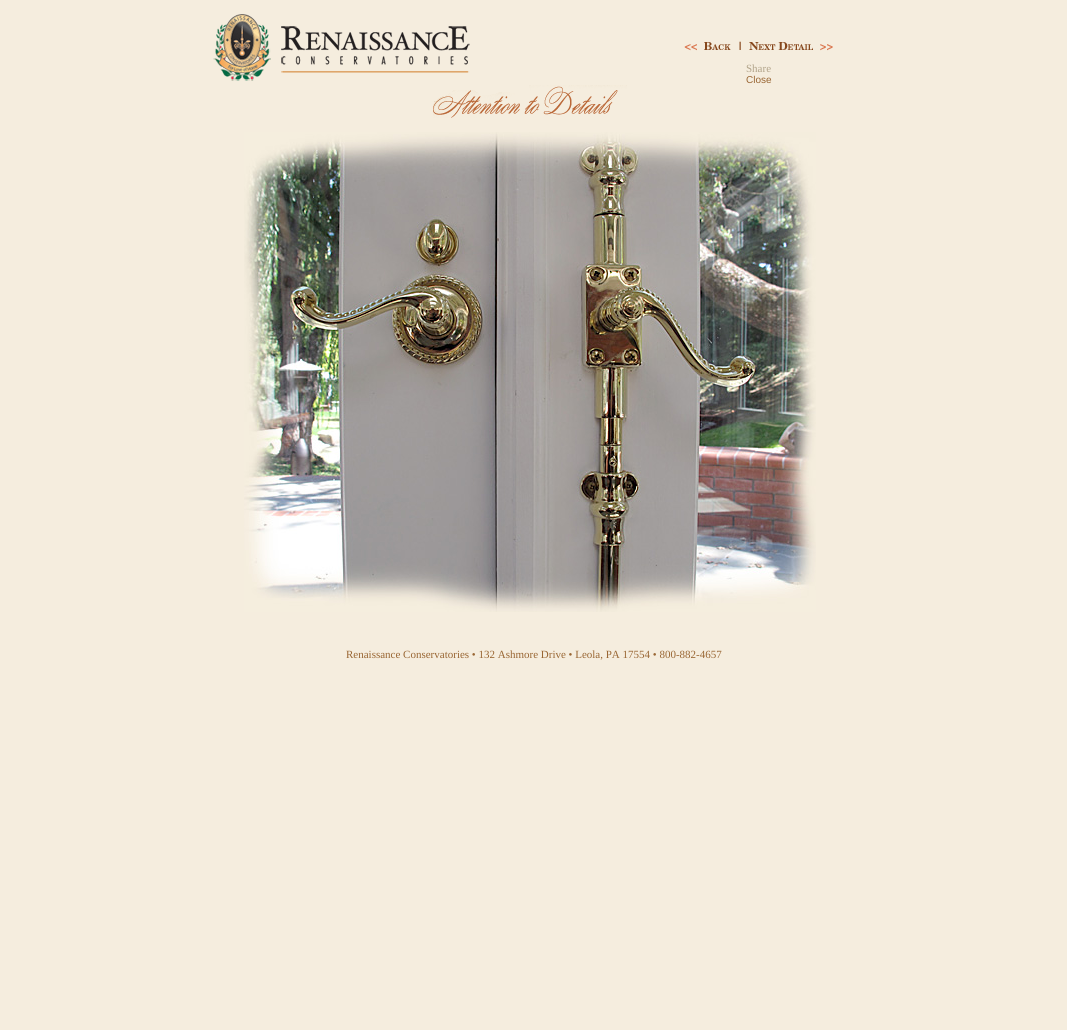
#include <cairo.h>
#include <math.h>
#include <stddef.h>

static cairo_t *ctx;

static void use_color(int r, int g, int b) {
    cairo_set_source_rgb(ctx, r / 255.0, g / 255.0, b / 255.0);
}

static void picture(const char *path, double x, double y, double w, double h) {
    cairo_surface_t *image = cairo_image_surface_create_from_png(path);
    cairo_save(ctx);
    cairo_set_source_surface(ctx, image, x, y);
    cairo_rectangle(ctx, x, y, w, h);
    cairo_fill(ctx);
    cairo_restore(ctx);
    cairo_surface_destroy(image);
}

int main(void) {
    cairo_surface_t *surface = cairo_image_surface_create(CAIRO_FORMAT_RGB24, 1067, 1030);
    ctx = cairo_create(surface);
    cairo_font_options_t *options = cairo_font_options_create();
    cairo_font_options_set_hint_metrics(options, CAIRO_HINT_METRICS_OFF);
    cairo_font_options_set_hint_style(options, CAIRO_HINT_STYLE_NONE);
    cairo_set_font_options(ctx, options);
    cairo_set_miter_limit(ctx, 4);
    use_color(245, 237, 222);
    cairo_paint(ctx);
    picture("img1.png", 213, 14, 257, 67);
    picture("img2.png", 684, 42, 47, 9);
    picture("img3.png", 739, 41, 2, 9);
    picture("img4.png", 749, 42, 84, 9);
    cairo_select_font_face(ctx, "Liberation Serif", CAIRO_FONT_SLANT_NORMAL, CAIRO_FONT_WEIGHT_NORMAL);
    cairo_set_font_size(ctx, 11);
    use_color(178, 164, 138);
    cairo_move_to(ctx, 746, 72);
    cairo_show_text(ctx, "Share");
    cairo_select_font_face(ctx, "Liberation Sans", CAIRO_FONT_SLANT_NORMAL, CAIRO_FONT_WEIGHT_NORMAL);
    cairo_set_font_size(ctx, 10);
    use_color(153, 102, 51);
    cairo_move_to(ctx, 746, 83);
    cairo_show_text(ctx, "Close");
    picture("img5.png", 433, 85, 194, 33);
    picture("img6.png", 244, 132, 572, 480);
    cairo_select_font_face(ctx, "Liberation Serif", CAIRO_FONT_SLANT_NORMAL, CAIRO_FONT_WEIGHT_NORMAL);
    cairo_set_font_size(ctx, 11);
    cairo_move_to(ctx, 346, 658);
    cairo_show_text(ctx, "Renaissance Conservatories • 132 Ashmore Drive • Leola, PA 17554 • 800-882-4657");
    cairo_surface_write_to_png(surface, "result.png");
    cairo_font_options_destroy(options);
    cairo_destroy(ctx);
    cairo_surface_destroy(surface);
    return 0;
}
